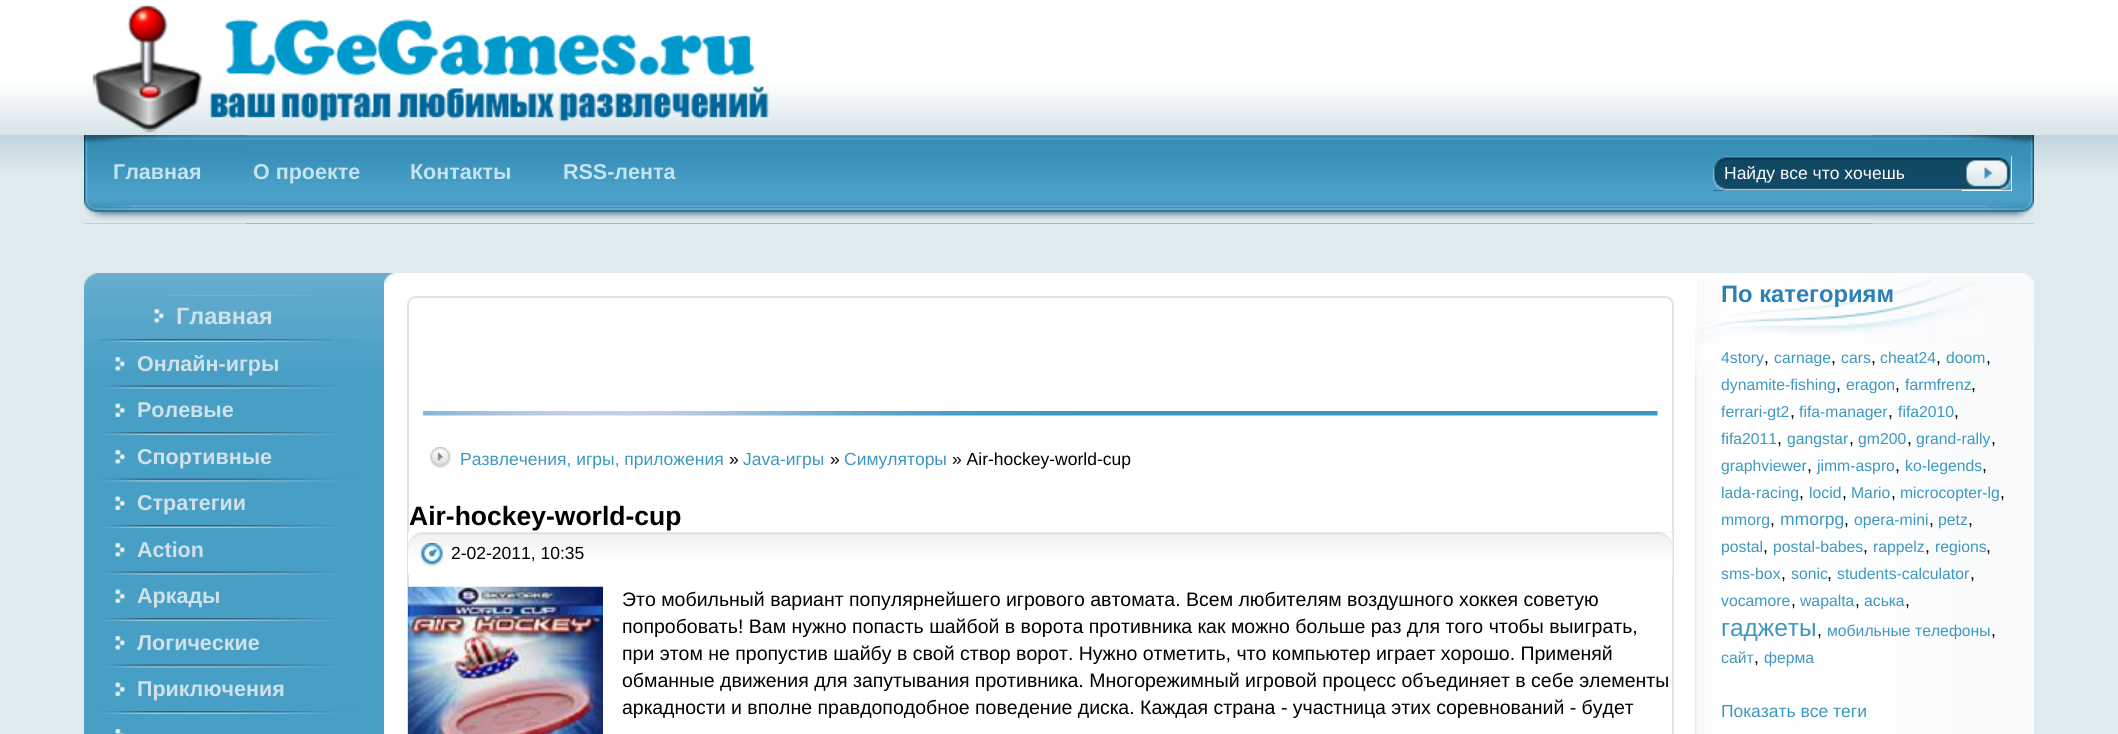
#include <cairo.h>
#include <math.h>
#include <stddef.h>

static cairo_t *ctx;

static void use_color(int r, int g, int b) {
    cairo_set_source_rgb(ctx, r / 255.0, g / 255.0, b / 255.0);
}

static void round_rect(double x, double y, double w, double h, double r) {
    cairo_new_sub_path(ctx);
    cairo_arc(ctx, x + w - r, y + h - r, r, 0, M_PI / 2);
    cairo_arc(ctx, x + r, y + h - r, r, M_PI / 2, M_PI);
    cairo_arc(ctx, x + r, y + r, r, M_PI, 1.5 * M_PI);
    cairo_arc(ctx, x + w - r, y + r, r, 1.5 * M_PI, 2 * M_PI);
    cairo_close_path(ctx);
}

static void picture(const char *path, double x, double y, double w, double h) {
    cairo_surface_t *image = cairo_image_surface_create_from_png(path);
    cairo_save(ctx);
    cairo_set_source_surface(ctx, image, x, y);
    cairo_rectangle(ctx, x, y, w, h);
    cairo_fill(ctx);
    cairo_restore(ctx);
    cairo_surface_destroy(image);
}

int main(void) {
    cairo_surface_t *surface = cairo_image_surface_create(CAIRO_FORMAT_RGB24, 2118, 734);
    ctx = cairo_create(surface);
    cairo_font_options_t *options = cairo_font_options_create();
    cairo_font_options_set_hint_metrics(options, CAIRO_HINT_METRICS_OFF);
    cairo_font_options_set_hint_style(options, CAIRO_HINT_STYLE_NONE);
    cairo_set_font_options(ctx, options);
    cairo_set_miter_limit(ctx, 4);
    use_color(223, 234, 239);
    cairo_paint(ctx);
    picture("img1.png", 0, 0, 2118, 171);
    picture("img2.png", 92, 5, 677, 128);
    use_color(56, 144, 185);
    cairo_rectangle(ctx, 84, 223, 1950, 1);
    cairo_fill(ctx);
    picture("img3.png", 84, 135, 1950, 89);
    picture("img4.png", 84, 135, 162, 89);
    picture("img5.png", 1872, 135, 162, 89);
    cairo_select_font_face(ctx, "Liberation Sans", CAIRO_FONT_SLANT_NORMAL, CAIRO_FONT_WEIGHT_BOLD);
    cairo_set_font_size(ctx, 21.5);
    use_color(197, 227, 240);
    cairo_move_to(ctx, 113, 179);
    cairo_show_text(ctx, "Главная");
    cairo_move_to(ctx, 253, 179);
    cairo_show_text(ctx, "О проекте");
    cairo_move_to(ctx, 410, 179);
    cairo_show_text(ctx, "Контакты");
    cairo_move_to(ctx, 563, 179);
    cairo_show_text(ctx, "RSS-лента");
    use_color(17, 73, 101);
    cairo_rectangle(ctx, 1713, 190, 249, 1);
    cairo_fill(ctx);
    picture("img6.png", 1713, 156, 249, 35);
    cairo_select_font_face(ctx, "Liberation Sans", CAIRO_FONT_SLANT_NORMAL, CAIRO_FONT_WEIGHT_NORMAL);
    cairo_set_font_size(ctx, 17.5);
    use_color(255, 255, 255);
    cairo_move_to(ctx, 1724, 179);
    cairo_show_text(ctx, "Найду все что хочешь");
    cairo_rectangle(ctx, 1962, 156, 50, 35);
    cairo_fill(ctx);
    picture("img7.png", 1962, 156, 50, 35);
    cairo_rectangle(ctx, 384, 273, 1311, 461);
    cairo_fill(ctx);
    picture("img8.png", 1695, 378, 339, 356);
    picture("img9.png", 1695, 273, 339, 105);
    use_color(72, 159, 198);
    cairo_rectangle(ctx, 84, 368, 300, 366);
    cairo_fill(ctx);
    picture("img10.png", 84, 273, 300, 95);
    picture("img11.png", 138, 295, 189, 1);
    picture("img12.png", 154, 309, 10, 14);
    cairo_select_font_face(ctx, "Liberation Sans", CAIRO_FONT_SLANT_NORMAL, CAIRO_FONT_WEIGHT_BOLD);
    cairo_set_font_size(ctx, 23.5);
    use_color(208, 225, 232);
    cairo_move_to(ctx, 176, 324);
    cairo_show_text(ctx, "Главная");
    picture("img13.png", 99, 339, 258, 3);
    picture("img14.png", 115, 357, 10, 14);
    cairo_set_font_size(ctx, 21.5);
    cairo_move_to(ctx, 137, 371);
    cairo_show_text(ctx, "Онлайн-игры");
    picture("img15.png", 99, 385, 258, 4);
    picture("img16.png", 115, 403, 10, 14);
    cairo_move_to(ctx, 137, 417);
    cairo_show_text(ctx, "Ролевые");
    picture("img17.png", 99, 432, 258, 3);
    picture("img18.png", 115, 450, 10, 14);
    cairo_move_to(ctx, 137, 464);
    cairo_show_text(ctx, "Спортивные");
    picture("img15.png", 99, 478, 258, 4);
    picture("img16.png", 115, 496, 10, 14);
    cairo_move_to(ctx, 137, 510);
    cairo_show_text(ctx, "Стратегии");
    picture("img17.png", 99, 525, 258, 3);
    picture("img18.png", 115, 543, 10, 14);
    cairo_move_to(ctx, 137, 557);
    cairo_show_text(ctx, "Action");
    picture("img15.png", 99, 571, 258, 4);
    picture("img16.png", 115, 589, 10, 14);
    cairo_move_to(ctx, 137, 603);
    cairo_show_text(ctx, "Аркады");
    picture("img17.png", 99, 618, 258, 3);
    picture("img18.png", 115, 636, 10, 14);
    cairo_move_to(ctx, 137, 650);
    cairo_show_text(ctx, "Логические");
    picture("img15.png", 99, 664, 258, 4);
    picture("img16.png", 115, 682, 10, 14);
    cairo_move_to(ctx, 137, 696);
    cairo_show_text(ctx, "Приключения");
    picture("img17.png", 99, 711, 258, 3);
    picture("img19.png", 115, 729, 10, 5);
    picture("img20.png", 384, 273, 11, 11);
    round_rect(408, 297, 1265, 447, 8);
    use_color(222, 228, 232);
    cairo_stroke(ctx);
    picture("img21.png", 423, 411, 1235, 5);
    picture("img22.png", 429, 447, 22, 22);
    cairo_select_font_face(ctx, "Liberation Sans", CAIRO_FONT_SLANT_NORMAL, CAIRO_FONT_WEIGHT_NORMAL);
    cairo_set_font_size(ctx, 17.5);
    use_color(61, 151, 192);
    cairo_move_to(ctx, 460, 465);
    cairo_show_text(ctx, "Развлечения, игры, приложения");
    use_color(0, 0, 0);
    cairo_move_to(ctx, 729, 465);
    cairo_show_text(ctx, "»");
    use_color(61, 151, 192);
    cairo_move_to(ctx, 743, 465);
    cairo_show_text(ctx, "Java-игры");
    use_color(0, 0, 0);
    cairo_move_to(ctx, 830, 465);
    cairo_show_text(ctx, "»");
    use_color(61, 151, 192);
    cairo_move_to(ctx, 844, 465);
    cairo_show_text(ctx, "Симуляторы");
    use_color(0, 0, 0);
    cairo_move_to(ctx, 952, 465);
    cairo_show_text(ctx, "» Air-hockey-world-cup");
    cairo_select_font_face(ctx, "Liberation Sans", CAIRO_FONT_SLANT_NORMAL, CAIRO_FONT_WEIGHT_BOLD);
    cairo_set_font_size(ctx, 26.5);
    cairo_move_to(ctx, 409, 525);
    cairo_show_text(ctx, "Air-hockey-world-cup");
    picture("img23.png", 408, 532, 1265, 43);
    picture("img24.png", 1401, 532, 272, 42);
    picture("img25.png", 420, 543, 24, 24);
    cairo_select_font_face(ctx, "Liberation Sans", CAIRO_FONT_SLANT_NORMAL, CAIRO_FONT_WEIGHT_NORMAL);
    cairo_set_font_size(ctx, 17.5);
    cairo_move_to(ctx, 451, 559);
    cairo_show_text(ctx, "2-02-2011, 10:35");
    picture("img26.png", 408, 586, 195, 148);
    cairo_set_font_size(ctx, 19.5);
    cairo_move_to(ctx, 622, 606);
    cairo_show_text(ctx, "Это мобильный вариант популярнейшего игрового автомата. Всем любителям воздушного хоккея советую");
    cairo_move_to(ctx, 622, 633);
    cairo_show_text(ctx, "попробовать! Вам нужно попасть шайбой в ворота противника как можно больше раз для того чтобы выиграть,");
    cairo_move_to(ctx, 622, 660);
    cairo_show_text(ctx, "при этом не пропустив шайбу в свой створ ворот. Нужно отметить, что компьютер играет хорошо. Применяй");
    cairo_move_to(ctx, 622, 687);
    cairo_show_text(ctx, "обманные движения для запутывания противника. Многорежимный игровой процесс объединяет в себе элементы");
    cairo_move_to(ctx, 622, 714);
    cairo_show_text(ctx, "аркадности и вполне правдоподобное поведение диска. Каждая страна - участница этих соревнований - будет");
    picture("img27.png", 1697, 280, 337, 64);
    cairo_select_font_face(ctx, "Liberation Sans", CAIRO_FONT_SLANT_NORMAL, CAIRO_FONT_WEIGHT_BOLD);
    cairo_set_font_size(ctx, 23.75);
    use_color(45, 127, 181);
    cairo_move_to(ctx, 1721, 302);
    cairo_show_text(ctx, "По категориям");
    cairo_select_font_face(ctx, "Liberation Sans", CAIRO_FONT_SLANT_NORMAL, CAIRO_FONT_WEIGHT_NORMAL);
    cairo_set_font_size(ctx, 15.75);
    use_color(61, 151, 192);
    cairo_move_to(ctx, 1721, 363);
    cairo_show_text(ctx, "4story");
    cairo_set_font_size(ctx, 17.5);
    use_color(0, 0, 0);
    cairo_move_to(ctx, 1764, 363);
    cairo_show_text(ctx, ",");
    cairo_set_font_size(ctx, 15.75);
    use_color(61, 151, 192);
    cairo_move_to(ctx, 1774, 363);
    cairo_show_text(ctx, "carnage");
    cairo_set_font_size(ctx, 17.5);
    use_color(0, 0, 0);
    cairo_move_to(ctx, 1831, 363);
    cairo_show_text(ctx, ",");
    cairo_set_font_size(ctx, 15.75);
    use_color(61, 151, 192);
    cairo_move_to(ctx, 1841, 363);
    cairo_show_text(ctx, "cars");
    cairo_set_font_size(ctx, 17.5);
    use_color(0, 0, 0);
    cairo_move_to(ctx, 1871, 363);
    cairo_show_text(ctx, ",");
    cairo_set_font_size(ctx, 15.75);
    use_color(61, 151, 192);
    cairo_move_to(ctx, 1880, 363);
    cairo_show_text(ctx, "cheat24");
    cairo_set_font_size(ctx, 17.5);
    use_color(0, 0, 0);
    cairo_move_to(ctx, 1936, 363);
    cairo_show_text(ctx, ",");
    cairo_set_font_size(ctx, 15.75);
    use_color(61, 151, 192);
    cairo_move_to(ctx, 1946, 363);
    cairo_show_text(ctx, "doom");
    cairo_set_font_size(ctx, 17.5);
    use_color(0, 0, 0);
    cairo_move_to(ctx, 1986, 363);
    cairo_show_text(ctx, ",");
    cairo_set_font_size(ctx, 15.75);
    use_color(61, 151, 192);
    cairo_move_to(ctx, 1721, 390);
    cairo_show_text(ctx, "dynamite-fishing");
    cairo_set_font_size(ctx, 17.5);
    use_color(0, 0, 0);
    cairo_move_to(ctx, 1836, 390);
    cairo_show_text(ctx, ",");
    cairo_set_font_size(ctx, 15.75);
    use_color(61, 151, 192);
    cairo_move_to(ctx, 1846, 390);
    cairo_show_text(ctx, "eragon");
    cairo_set_font_size(ctx, 17.5);
    use_color(0, 0, 0);
    cairo_move_to(ctx, 1895, 390);
    cairo_show_text(ctx, ",");
    cairo_set_font_size(ctx, 15.75);
    use_color(61, 151, 192);
    cairo_move_to(ctx, 1905, 390);
    cairo_show_text(ctx, "farmfrenz");
    cairo_set_font_size(ctx, 17.5);
    use_color(0, 0, 0);
    cairo_move_to(ctx, 1971, 390);
    cairo_show_text(ctx, ",");
    cairo_set_font_size(ctx, 15.75);
    use_color(61, 151, 192);
    cairo_move_to(ctx, 1721, 417);
    cairo_show_text(ctx, "ferrari-gt2");
    cairo_set_font_size(ctx, 17.5);
    use_color(0, 0, 0);
    cairo_move_to(ctx, 1790, 417);
    cairo_show_text(ctx, ",");
    cairo_set_font_size(ctx, 15.75);
    use_color(61, 151, 192);
    cairo_move_to(ctx, 1799, 417);
    cairo_show_text(ctx, "fifa-manager");
    cairo_set_font_size(ctx, 17.5);
    use_color(0, 0, 0);
    cairo_move_to(ctx, 1888, 417);
    cairo_show_text(ctx, ",");
    cairo_set_font_size(ctx, 15.75);
    use_color(61, 151, 192);
    cairo_move_to(ctx, 1898, 417);
    cairo_show_text(ctx, "fifa2010");
    cairo_set_font_size(ctx, 17.5);
    use_color(0, 0, 0);
    cairo_move_to(ctx, 1954, 417);
    cairo_show_text(ctx, ",");
    cairo_set_font_size(ctx, 15.75);
    use_color(61, 151, 192);
    cairo_move_to(ctx, 1721, 444);
    cairo_show_text(ctx, "fifa2011");
    cairo_set_font_size(ctx, 17.5);
    use_color(0, 0, 0);
    cairo_move_to(ctx, 1777, 444);
    cairo_show_text(ctx, ",");
    cairo_set_font_size(ctx, 15.75);
    use_color(61, 151, 192);
    cairo_move_to(ctx, 1787, 444);
    cairo_show_text(ctx, "gangstar");
    cairo_set_font_size(ctx, 17.5);
    use_color(0, 0, 0);
    cairo_move_to(ctx, 1849, 444);
    cairo_show_text(ctx, ",");
    cairo_set_font_size(ctx, 15.75);
    use_color(61, 151, 192);
    cairo_move_to(ctx, 1858, 444);
    cairo_show_text(ctx, "gm200");
    cairo_set_font_size(ctx, 17.5);
    use_color(0, 0, 0);
    cairo_move_to(ctx, 1907, 444);
    cairo_show_text(ctx, ",");
    cairo_set_font_size(ctx, 15.75);
    use_color(61, 151, 192);
    cairo_move_to(ctx, 1916, 444);
    cairo_show_text(ctx, "grand-rally");
    cairo_set_font_size(ctx, 17.5);
    use_color(0, 0, 0);
    cairo_move_to(ctx, 1991, 444);
    cairo_show_text(ctx, ",");
    cairo_set_font_size(ctx, 15.75);
    use_color(61, 151, 192);
    cairo_move_to(ctx, 1721, 471);
    cairo_show_text(ctx, "graphviewer");
    cairo_set_font_size(ctx, 17.5);
    use_color(0, 0, 0);
    cairo_move_to(ctx, 1807, 471);
    cairo_show_text(ctx, ",");
    cairo_set_font_size(ctx, 15.75);
    use_color(61, 151, 192);
    cairo_move_to(ctx, 1817, 471);
    cairo_show_text(ctx, "jimm-aspro");
    cairo_set_font_size(ctx, 17.5);
    use_color(0, 0, 0);
    cairo_move_to(ctx, 1895, 471);
    cairo_show_text(ctx, ",");
    cairo_set_font_size(ctx, 15.75);
    use_color(61, 151, 192);
    cairo_move_to(ctx, 1905, 471);
    cairo_show_text(ctx, "ko-legends");
    cairo_set_font_size(ctx, 17.5);
    use_color(0, 0, 0);
    cairo_move_to(ctx, 1982, 471);
    cairo_show_text(ctx, ",");
    cairo_set_font_size(ctx, 15.75);
    use_color(61, 151, 192);
    cairo_move_to(ctx, 1721, 498);
    cairo_show_text(ctx, "lada-racing");
    cairo_set_font_size(ctx, 17.5);
    use_color(0, 0, 0);
    cairo_move_to(ctx, 1799, 498);
    cairo_show_text(ctx, ",");
    cairo_set_font_size(ctx, 15.75);
    use_color(61, 151, 192);
    cairo_move_to(ctx, 1809, 498);
    cairo_show_text(ctx, "locid");
    cairo_set_font_size(ctx, 17.5);
    use_color(0, 0, 0);
    cairo_move_to(ctx, 1842, 498);
    cairo_show_text(ctx, ",");
    cairo_set_font_size(ctx, 15.75);
    use_color(61, 151, 192);
    cairo_move_to(ctx, 1851, 498);
    cairo_show_text(ctx, "Mario");
    cairo_set_font_size(ctx, 17.5);
    use_color(0, 0, 0);
    cairo_move_to(ctx, 1891, 498);
    cairo_show_text(ctx, ",");
    cairo_set_font_size(ctx, 15.75);
    use_color(61, 151, 192);
    cairo_move_to(ctx, 1900, 498);
    cairo_show_text(ctx, "microcopter-lg");
    cairo_set_font_size(ctx, 17.5);
    use_color(0, 0, 0);
    cairo_move_to(ctx, 2000, 498);
    cairo_show_text(ctx, ",");
    cairo_set_font_size(ctx, 15.75);
    use_color(61, 151, 192);
    cairo_move_to(ctx, 1721, 525);
    cairo_show_text(ctx, "mmorg");
    cairo_set_font_size(ctx, 17.5);
    use_color(0, 0, 0);
    cairo_move_to(ctx, 1770, 525);
    cairo_show_text(ctx, ",");
    use_color(61, 151, 192);
    cairo_move_to(ctx, 1780, 525);
    cairo_show_text(ctx, "mmorpg");
    use_color(0, 0, 0);
    cairo_move_to(ctx, 1844, 525);
    cairo_show_text(ctx, ",");
    cairo_set_font_size(ctx, 15.75);
    use_color(61, 151, 192);
    cairo_move_to(ctx, 1854, 525);
    cairo_show_text(ctx, "opera-mini");
    cairo_set_font_size(ctx, 17.5);
    use_color(0, 0, 0);
    cairo_move_to(ctx, 1929, 525);
    cairo_show_text(ctx, ",");
    cairo_set_font_size(ctx, 15.75);
    use_color(61, 151, 192);
    cairo_move_to(ctx, 1938, 525);
    cairo_show_text(ctx, "petz");
    cairo_set_font_size(ctx, 17.5);
    use_color(0, 0, 0);
    cairo_move_to(ctx, 1968, 525);
    cairo_show_text(ctx, ",");
    cairo_set_font_size(ctx, 15.75);
    use_color(61, 151, 192);
    cairo_move_to(ctx, 1721, 552);
    cairo_show_text(ctx, "postal");
    cairo_set_font_size(ctx, 17.5);
    use_color(0, 0, 0);
    cairo_move_to(ctx, 1763, 552);
    cairo_show_text(ctx, ",");
    cairo_set_font_size(ctx, 15.75);
    use_color(61, 151, 192);
    cairo_move_to(ctx, 1773, 552);
    cairo_show_text(ctx, "postal-babes");
    cairo_set_font_size(ctx, 17.5);
    use_color(0, 0, 0);
    cairo_move_to(ctx, 1863, 552);
    cairo_show_text(ctx, ",");
    cairo_set_font_size(ctx, 15.75);
    use_color(61, 151, 192);
    cairo_move_to(ctx, 1873, 552);
    cairo_show_text(ctx, "rappelz");
    cairo_set_font_size(ctx, 17.5);
    use_color(0, 0, 0);
    cairo_move_to(ctx, 1925, 552);
    cairo_show_text(ctx, ",");
    cairo_set_font_size(ctx, 15.75);
    use_color(61, 151, 192);
    cairo_move_to(ctx, 1935, 552);
    cairo_show_text(ctx, "regions");
    cairo_set_font_size(ctx, 17.5);
    use_color(0, 0, 0);
    cairo_move_to(ctx, 1986, 552);
    cairo_show_text(ctx, ",");
    cairo_set_font_size(ctx, 15.75);
    use_color(61, 151, 192);
    cairo_move_to(ctx, 1721, 579);
    cairo_show_text(ctx, "sms-box");
    cairo_set_font_size(ctx, 17.5);
    use_color(0, 0, 0);
    cairo_move_to(ctx, 1781, 579);
    cairo_show_text(ctx, ",");
    cairo_set_font_size(ctx, 15.75);
    use_color(61, 151, 192);
    cairo_move_to(ctx, 1791, 579);
    cairo_show_text(ctx, "sonic");
    cairo_set_font_size(ctx, 17.5);
    use_color(0, 0, 0);
    cairo_move_to(ctx, 1827, 579);
    cairo_show_text(ctx, ",");
    cairo_set_font_size(ctx, 15.75);
    use_color(61, 151, 192);
    cairo_move_to(ctx, 1837, 579);
    cairo_show_text(ctx, "students-calculator");
    cairo_set_font_size(ctx, 17.5);
    use_color(0, 0, 0);
    cairo_move_to(ctx, 1970, 579);
    cairo_show_text(ctx, ",");
    cairo_set_font_size(ctx, 15.75);
    use_color(61, 151, 192);
    cairo_move_to(ctx, 1721, 606);
    cairo_show_text(ctx, "vocamore");
    cairo_set_font_size(ctx, 17.5);
    use_color(0, 0, 0);
    cairo_move_to(ctx, 1791, 606);
    cairo_show_text(ctx, ",");
    cairo_set_font_size(ctx, 15.75);
    use_color(61, 151, 192);
    cairo_move_to(ctx, 1800, 606);
    cairo_show_text(ctx, "wapalta");
    cairo_set_font_size(ctx, 17.5);
    use_color(0, 0, 0);
    cairo_move_to(ctx, 1855, 606);
    cairo_show_text(ctx, ",");
    cairo_set_font_size(ctx, 15.75);
    use_color(61, 151, 192);
    cairo_move_to(ctx, 1864, 606);
    cairo_show_text(ctx, "аська");
    cairo_set_font_size(ctx, 17.5);
    use_color(0, 0, 0);
    cairo_move_to(ctx, 1905, 606);
    cairo_show_text(ctx, ",");
    cairo_set_font_size(ctx, 24.5);
    use_color(61, 151, 192);
    cairo_move_to(ctx, 1721, 636);
    cairo_show_text(ctx, "гаджеты");
    cairo_set_font_size(ctx, 17.5);
    use_color(0, 0, 0);
    cairo_move_to(ctx, 1817, 636);
    cairo_show_text(ctx, ",");
    cairo_set_font_size(ctx, 15.75);
    use_color(61, 151, 192);
    cairo_move_to(ctx, 1827, 636);
    cairo_show_text(ctx, "мобильные телефоны");
    cairo_set_font_size(ctx, 17.5);
    use_color(0, 0, 0);
    cairo_move_to(ctx, 1991, 636);
    cairo_show_text(ctx, ",");
    cairo_set_font_size(ctx, 15.75);
    use_color(61, 151, 192);
    cairo_move_to(ctx, 1721, 663);
    cairo_show_text(ctx, "сайт");
    cairo_set_font_size(ctx, 17.5);
    use_color(0, 0, 0);
    cairo_move_to(ctx, 1754, 663);
    cairo_show_text(ctx, ",");
    cairo_set_font_size(ctx, 15.75);
    use_color(61, 151, 192);
    cairo_move_to(ctx, 1764, 663);
    cairo_show_text(ctx, "ферма");
    cairo_set_font_size(ctx, 17.5);
    cairo_move_to(ctx, 1721, 717);
    cairo_show_text(ctx, "Показать все теги");
    cairo_surface_write_to_png(surface, "result.png");
    cairo_font_options_destroy(options);
    cairo_destroy(ctx);
    cairo_surface_destroy(surface);
    return 0;
}
